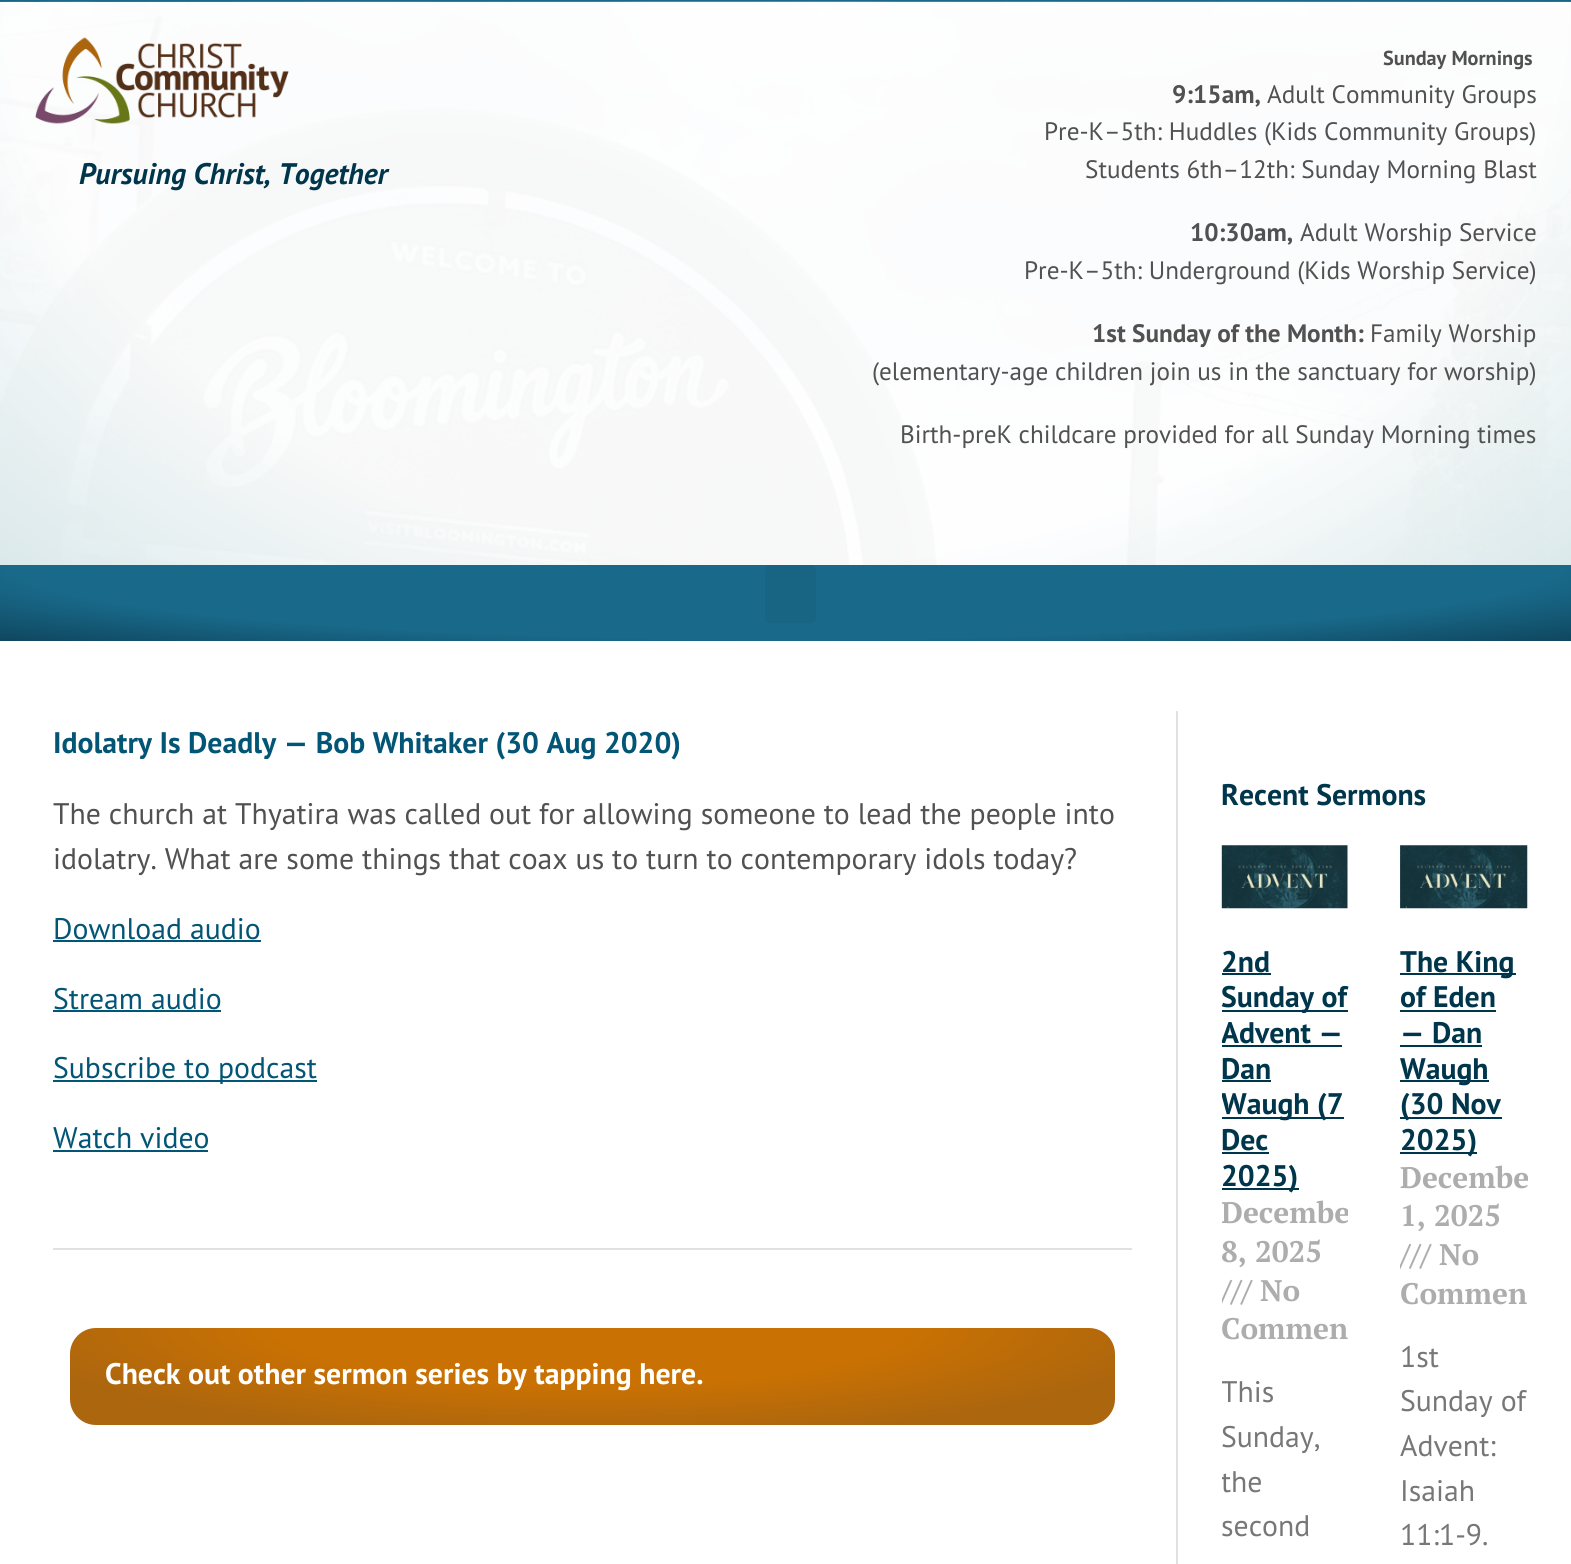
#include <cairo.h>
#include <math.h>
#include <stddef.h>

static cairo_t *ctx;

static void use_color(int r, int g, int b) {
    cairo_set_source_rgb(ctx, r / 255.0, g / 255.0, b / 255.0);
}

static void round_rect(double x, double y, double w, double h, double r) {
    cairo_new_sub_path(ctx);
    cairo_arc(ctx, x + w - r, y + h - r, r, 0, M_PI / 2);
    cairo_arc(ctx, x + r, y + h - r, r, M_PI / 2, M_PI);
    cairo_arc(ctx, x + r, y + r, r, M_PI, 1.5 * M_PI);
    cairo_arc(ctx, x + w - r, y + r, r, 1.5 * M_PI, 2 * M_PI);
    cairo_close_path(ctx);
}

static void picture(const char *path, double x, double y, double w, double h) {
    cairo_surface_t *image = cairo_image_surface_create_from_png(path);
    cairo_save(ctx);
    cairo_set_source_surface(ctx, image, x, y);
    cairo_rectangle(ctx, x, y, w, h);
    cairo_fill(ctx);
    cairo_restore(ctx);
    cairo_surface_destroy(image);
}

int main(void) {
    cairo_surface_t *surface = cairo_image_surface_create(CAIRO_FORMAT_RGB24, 1571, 1564);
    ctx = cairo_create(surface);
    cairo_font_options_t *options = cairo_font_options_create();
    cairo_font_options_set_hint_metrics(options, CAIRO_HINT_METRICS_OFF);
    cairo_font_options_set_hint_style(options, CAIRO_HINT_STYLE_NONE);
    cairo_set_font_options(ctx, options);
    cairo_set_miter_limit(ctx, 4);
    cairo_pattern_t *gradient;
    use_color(255, 255, 255);
    cairo_paint(ctx);
    gradient = cairo_pattern_create_radial(0, 0, 0, 0, 0, 1);
    cairo_pattern_set_matrix(gradient, &(cairo_matrix_t){1.0 / 1111, 0, 0, 1.0 / 2.5, -1.0 * 786 / 1111, -1.0 * 0 / 2.5});
    cairo_pattern_add_color_stop_rgba(gradient, 0.7, 0.098, 0.412, 0.541, 1);
    cairo_pattern_add_color_stop_rgba(gradient, 1, 0.059, 0.278, 0.373, 1);
    cairo_set_source(ctx, gradient);
    cairo_pattern_destroy(gradient);
    cairo_rectangle(ctx, 0, 0, 1571, 2);
    cairo_fill(ctx);
    picture("img1.png", 0, 1, 1571, 564);
    picture("img2.png", 35, 37, 254, 87);
    cairo_select_font_face(ctx, "PT Sans", CAIRO_FONT_SLANT_ITALIC, CAIRO_FONT_WEIGHT_BOLD);
    cairo_set_font_size(ctx, 29.75);
    use_color(0, 54, 76);
    cairo_move_to(ctx, 79, 184);
    cairo_show_text(ctx, "Pursuing Christ, Together");
    cairo_select_font_face(ctx, "PT Sans", CAIRO_FONT_SLANT_NORMAL, CAIRO_FONT_WEIGHT_BOLD);
    cairo_set_font_size(ctx, 20.25);
    use_color(81, 81, 81);
    cairo_move_to(ctx, 1383, 65);
    cairo_show_text(ctx, "Sunday Mornings");
    cairo_set_font_size(ctx, 25.2);
    cairo_move_to(ctx, 1172, 103);
    cairo_show_text(ctx, "9:15am,");
    cairo_select_font_face(ctx, "PT Sans", CAIRO_FONT_SLANT_NORMAL, CAIRO_FONT_WEIGHT_NORMAL);
    cairo_move_to(ctx, 1267, 103);
    cairo_show_text(ctx, "Adult Community Groups");
    cairo_move_to(ctx, 1044, 140);
    cairo_show_text(ctx, "Pre-K–5th: Huddles (Kids Community Groups)");
    cairo_move_to(ctx, 1085, 178);
    cairo_show_text(ctx, "Students 6th–12th: Sunday Morning Blast");
    cairo_select_font_face(ctx, "PT Sans", CAIRO_FONT_SLANT_NORMAL, CAIRO_FONT_WEIGHT_BOLD);
    cairo_move_to(ctx, 1190, 241);
    cairo_show_text(ctx, "10:30am,");
    cairo_select_font_face(ctx, "PT Sans", CAIRO_FONT_SLANT_NORMAL, CAIRO_FONT_WEIGHT_NORMAL);
    cairo_move_to(ctx, 1300, 241);
    cairo_show_text(ctx, "Adult Worship Service");
    cairo_move_to(ctx, 1024, 279);
    cairo_show_text(ctx, "Pre-K–5th: Underground (Kids Worship Service)");
    cairo_select_font_face(ctx, "PT Sans", CAIRO_FONT_SLANT_NORMAL, CAIRO_FONT_WEIGHT_BOLD);
    cairo_move_to(ctx, 1092, 342);
    cairo_show_text(ctx, "1st Sunday of the Month:");
    cairo_select_font_face(ctx, "PT Sans", CAIRO_FONT_SLANT_NORMAL, CAIRO_FONT_WEIGHT_NORMAL);
    cairo_move_to(ctx, 1370, 342);
    cairo_show_text(ctx, "Family Worship");
    cairo_move_to(ctx, 872, 380);
    cairo_show_text(ctx, "(elementary-age children join us in the sanctuary for worship)");
    cairo_move_to(ctx, 900, 443);
    cairo_show_text(ctx, "Birth-preK childcare provided for all Sunday Morning times");
    gradient = cairo_pattern_create_radial(0, 0, 0, 0, 0, 1);
    cairo_pattern_set_matrix(gradient, &(cairo_matrix_t){1.0 / 1111, 0, 0, 1.0 / 106, -1.0 * 786 / 1111, -1.0 * 565 / 106});
    cairo_pattern_add_color_stop_rgba(gradient, 0.7, 0.098, 0.412, 0.541, 1);
    cairo_pattern_add_color_stop_rgba(gradient, 1, 0.059, 0.278, 0.373, 1);
    cairo_set_source(ctx, gradient);
    cairo_pattern_destroy(gradient);
    cairo_rectangle(ctx, 0, 565, 1571, 76);
    cairo_fill(ctx);
    use_color(24, 100, 131);
    round_rect(765, 565, 51, 58, 5);
    cairo_fill(ctx);
    use_color(225, 225, 225);
    cairo_rectangle(ctx, 1176, 711, 2, 853);
    cairo_fill(ctx);
    cairo_select_font_face(ctx, "PT Sans", CAIRO_FONT_SLANT_NORMAL, CAIRO_FONT_WEIGHT_BOLD);
    cairo_set_font_size(ctx, 29.75);
    use_color(3, 85, 118);
    cairo_move_to(ctx, 53, 753);
    cairo_show_text(ctx, "Idolatry Is Deadly — Bob Whitaker (30 Aug 2020)");
    cairo_select_font_face(ctx, "PT Sans", CAIRO_FONT_SLANT_NORMAL, CAIRO_FONT_WEIGHT_NORMAL);
    use_color(81, 81, 81);
    cairo_move_to(ctx, 53, 824);
    cairo_show_text(ctx, "The church at Thyatira was called out for allowing someone to lead the people into");
    cairo_move_to(ctx, 53, 869);
    cairo_show_text(ctx, "idolatry. What are some things that coax us to turn to contemporary idols today?");
    use_color(3, 85, 118);
    cairo_move_to(ctx, 53, 939);
    cairo_show_text(ctx, "Download audio");
    cairo_rectangle(ctx, 53, 940, 208, 2);
    cairo_fill(ctx);
    cairo_move_to(ctx, 53, 1009);
    cairo_show_text(ctx, "Stream audio");
    cairo_rectangle(ctx, 53, 1010, 168, 2);
    cairo_fill(ctx);
    cairo_rectangle(ctx, 53, 1080, 264, 2);
    cairo_fill(ctx);
    cairo_move_to(ctx, 53, 1078);
    cairo_show_text(ctx, "Subscribe to podcast");
    cairo_move_to(ctx, 53, 1148);
    cairo_show_text(ctx, "Watch video");
    cairo_rectangle(ctx, 53, 1150, 155, 2);
    cairo_fill(ctx);
    use_color(225, 225, 225);
    cairo_rectangle(ctx, 53, 1248, 1079, 2);
    cairo_fill(ctx);
    gradient = cairo_pattern_create_radial(0, 0, 0, 0, 0, 1);
    cairo_pattern_set_matrix(gradient, &(cairo_matrix_t){1.0 / 739, 0, 0, 1.0 / 136, -1.0 * 592 / 739, -1.0 * 1328 / 136});
    cairo_pattern_add_color_stop_rgba(gradient, 0.43, 0.788, 0.443, 0.012, 1);
    cairo_pattern_add_color_stop_rgba(gradient, 0.8, 0.675, 0.4, 0.055, 1);
    cairo_set_source(ctx, gradient);
    cairo_pattern_destroy(gradient);
    round_rect(70, 1328, 1045, 97, 26);
    cairo_fill(ctx);
    cairo_select_font_face(ctx, "PT Sans", CAIRO_FONT_SLANT_NORMAL, CAIRO_FONT_WEIGHT_BOLD);
    use_color(255, 255, 255);
    cairo_move_to(ctx, 105, 1384);
    cairo_show_text(ctx, "Check out other sermon series by tapping here.");
    use_color(0, 54, 76);
    cairo_move_to(ctx, 1221, 805);
    cairo_show_text(ctx, "Recent Sermons");
    picture("img3.png", 1221, 845, 127, 64);
    cairo_move_to(ctx, 1221, 972);
    cairo_show_text(ctx, "2nd");
    cairo_rectangle(ctx, 1222, 973, 49, 2);
    cairo_fill(ctx);
    cairo_rectangle(ctx, 1222, 1010, 126, 2);
    cairo_fill(ctx);
    cairo_move_to(ctx, 1221, 1007);
    cairo_show_text(ctx, "Sunday of");
    cairo_save(ctx);
    cairo_rectangle(ctx, 1222, 845, 126, 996);
    cairo_clip(ctx);
    cairo_move_to(ctx, 1221, 1043);
    cairo_show_text(ctx, "Advent —");
    cairo_restore(ctx);
    cairo_rectangle(ctx, 1222, 1045, 120, 2);
    cairo_fill(ctx);
    cairo_move_to(ctx, 1221, 1079);
    cairo_show_text(ctx, "Dan");
    cairo_rectangle(ctx, 1222, 1080, 49, 2);
    cairo_fill(ctx);
    cairo_rectangle(ctx, 1222, 1117, 122, 2);
    cairo_fill(ctx);
    cairo_save(ctx);
    cairo_rectangle(ctx, 1222, 845, 126, 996);
    cairo_clip(ctx);
    cairo_move_to(ctx, 1221, 1114);
    cairo_show_text(ctx, "Waugh (7");
    cairo_restore(ctx);
    cairo_move_to(ctx, 1221, 1150);
    cairo_show_text(ctx, "Dec");
    cairo_rectangle(ctx, 1222, 1152, 47, 2);
    cairo_fill(ctx);
    cairo_rectangle(ctx, 1222, 1188, 77, 2);
    cairo_fill(ctx);
    cairo_move_to(ctx, 1221, 1186);
    cairo_show_text(ctx, "2025)");
    cairo_save(ctx);
    cairo_rectangle(ctx, 1222, 845, 126, 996);
    cairo_clip(ctx);
    cairo_select_font_face(ctx, "PT Serif", CAIRO_FONT_SLANT_NORMAL, CAIRO_FONT_WEIGHT_BOLD);
    use_color(173, 173, 173);
    cairo_move_to(ctx, 1221, 1223);
    cairo_show_text(ctx, "Decembe");
    cairo_restore(ctx);
    cairo_select_font_face(ctx, "PT Serif", CAIRO_FONT_SLANT_NORMAL, CAIRO_FONT_WEIGHT_BOLD);
    use_color(173, 173, 173);
    cairo_move_to(ctx, 1221, 1262);
    cairo_show_text(ctx, "8, 2025");
    cairo_save(ctx);
    cairo_rectangle(ctx, 1222, 845, 126, 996);
    cairo_clip(ctx);
    cairo_move_to(ctx, 1221, 1301);
    cairo_show_text(ctx, "///");
    cairo_restore(ctx);
    cairo_move_to(ctx, 1260, 1301);
    cairo_show_text(ctx, "No");
    cairo_move_to(ctx, 1221, 1339);
    cairo_show_text(ctx, "Commen");
    cairo_save(ctx);
    cairo_rectangle(ctx, 1222, 845, 126, 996);
    cairo_clip(ctx);
    cairo_select_font_face(ctx, "PT Sans", CAIRO_FONT_SLANT_NORMAL, CAIRO_FONT_WEIGHT_NORMAL);
    use_color(119, 119, 119);
    cairo_move_to(ctx, 1221, 1402);
    cairo_show_text(ctx, "This");
    cairo_restore(ctx);
    cairo_select_font_face(ctx, "PT Sans", CAIRO_FONT_SLANT_NORMAL, CAIRO_FONT_WEIGHT_NORMAL);
    use_color(119, 119, 119);
    cairo_move_to(ctx, 1221, 1447);
    cairo_show_text(ctx, "Sunday,");
    cairo_save(ctx);
    cairo_rectangle(ctx, 1222, 845, 126, 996);
    cairo_clip(ctx);
    cairo_move_to(ctx, 1221, 1492);
    cairo_show_text(ctx, "the");
    cairo_restore(ctx);
    cairo_move_to(ctx, 1221, 1536);
    cairo_show_text(ctx, "second");
    picture("img4.png", 1400, 845, 128, 64);
    use_color(0, 54, 76);
    cairo_rectangle(ctx, 1400, 973, 116, 2);
    cairo_fill(ctx);
    cairo_select_font_face(ctx, "PT Sans", CAIRO_FONT_SLANT_NORMAL, CAIRO_FONT_WEIGHT_BOLD);
    cairo_move_to(ctx, 1400, 972);
    cairo_show_text(ctx, "The King");
    cairo_move_to(ctx, 1400, 1007);
    cairo_show_text(ctx, "of Eden");
    cairo_rectangle(ctx, 1400, 1010, 96, 2);
    cairo_fill(ctx);
    cairo_move_to(ctx, 1400, 1043);
    cairo_show_text(ctx, "— Dan");
    cairo_rectangle(ctx, 1400, 1045, 82, 2);
    cairo_fill(ctx);
    cairo_rectangle(ctx, 1400, 1080, 89, 2);
    cairo_fill(ctx);
    cairo_move_to(ctx, 1400, 1079);
    cairo_show_text(ctx, "Waugh");
    cairo_rectangle(ctx, 1400, 1117, 102, 2);
    cairo_fill(ctx);
    cairo_move_to(ctx, 1400, 1114);
    cairo_show_text(ctx, "(30 Nov");
    cairo_rectangle(ctx, 1400, 1152, 77, 2);
    cairo_fill(ctx);
    cairo_move_to(ctx, 1400, 1150);
    cairo_show_text(ctx, "2025)");
    cairo_save(ctx);
    cairo_rectangle(ctx, 1400, 845, 128, 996);
    cairo_clip(ctx);
    cairo_select_font_face(ctx, "PT Serif", CAIRO_FONT_SLANT_NORMAL, CAIRO_FONT_WEIGHT_BOLD);
    use_color(173, 173, 173);
    cairo_move_to(ctx, 1400, 1188);
    cairo_show_text(ctx, "Decembe");
    cairo_restore(ctx);
    cairo_select_font_face(ctx, "PT Serif", CAIRO_FONT_SLANT_NORMAL, CAIRO_FONT_WEIGHT_BOLD);
    use_color(173, 173, 173);
    cairo_move_to(ctx, 1400, 1226);
    cairo_show_text(ctx, "1, 2025");
    cairo_save(ctx);
    cairo_rectangle(ctx, 1400, 845, 128, 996);
    cairo_clip(ctx);
    cairo_move_to(ctx, 1400, 1265);
    cairo_show_text(ctx, "///");
    cairo_restore(ctx);
    cairo_move_to(ctx, 1439, 1265);
    cairo_show_text(ctx, "No");
    cairo_move_to(ctx, 1400, 1304);
    cairo_show_text(ctx, "Commen");
    cairo_select_font_face(ctx, "PT Sans", CAIRO_FONT_SLANT_NORMAL, CAIRO_FONT_WEIGHT_NORMAL);
    use_color(119, 119, 119);
    cairo_move_to(ctx, 1400, 1367);
    cairo_show_text(ctx, "1st");
    cairo_move_to(ctx, 1400, 1411);
    cairo_show_text(ctx, "Sunday of");
    cairo_move_to(ctx, 1400, 1456);
    cairo_show_text(ctx, "Advent:");
    cairo_move_to(ctx, 1400, 1501);
    cairo_show_text(ctx, "Isaiah");
    cairo_move_to(ctx, 1400, 1545);
    cairo_show_text(ctx, "11:1-9.");
    cairo_surface_write_to_png(surface, "result.png");
    cairo_font_options_destroy(options);
    cairo_destroy(ctx);
    cairo_surface_destroy(surface);
    return 0;
}
